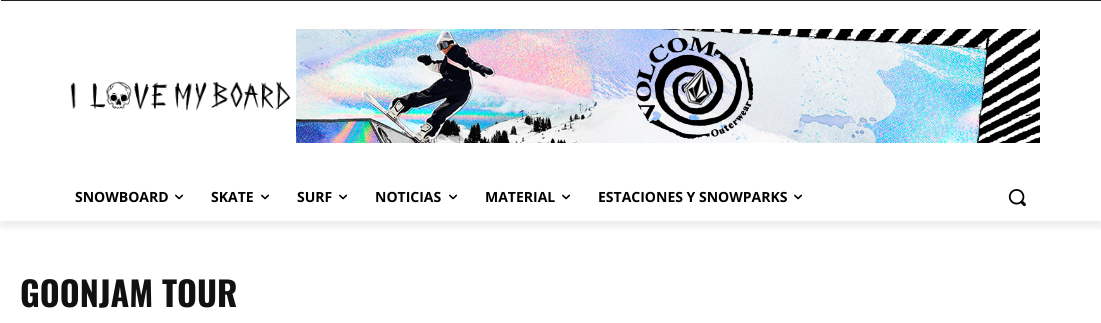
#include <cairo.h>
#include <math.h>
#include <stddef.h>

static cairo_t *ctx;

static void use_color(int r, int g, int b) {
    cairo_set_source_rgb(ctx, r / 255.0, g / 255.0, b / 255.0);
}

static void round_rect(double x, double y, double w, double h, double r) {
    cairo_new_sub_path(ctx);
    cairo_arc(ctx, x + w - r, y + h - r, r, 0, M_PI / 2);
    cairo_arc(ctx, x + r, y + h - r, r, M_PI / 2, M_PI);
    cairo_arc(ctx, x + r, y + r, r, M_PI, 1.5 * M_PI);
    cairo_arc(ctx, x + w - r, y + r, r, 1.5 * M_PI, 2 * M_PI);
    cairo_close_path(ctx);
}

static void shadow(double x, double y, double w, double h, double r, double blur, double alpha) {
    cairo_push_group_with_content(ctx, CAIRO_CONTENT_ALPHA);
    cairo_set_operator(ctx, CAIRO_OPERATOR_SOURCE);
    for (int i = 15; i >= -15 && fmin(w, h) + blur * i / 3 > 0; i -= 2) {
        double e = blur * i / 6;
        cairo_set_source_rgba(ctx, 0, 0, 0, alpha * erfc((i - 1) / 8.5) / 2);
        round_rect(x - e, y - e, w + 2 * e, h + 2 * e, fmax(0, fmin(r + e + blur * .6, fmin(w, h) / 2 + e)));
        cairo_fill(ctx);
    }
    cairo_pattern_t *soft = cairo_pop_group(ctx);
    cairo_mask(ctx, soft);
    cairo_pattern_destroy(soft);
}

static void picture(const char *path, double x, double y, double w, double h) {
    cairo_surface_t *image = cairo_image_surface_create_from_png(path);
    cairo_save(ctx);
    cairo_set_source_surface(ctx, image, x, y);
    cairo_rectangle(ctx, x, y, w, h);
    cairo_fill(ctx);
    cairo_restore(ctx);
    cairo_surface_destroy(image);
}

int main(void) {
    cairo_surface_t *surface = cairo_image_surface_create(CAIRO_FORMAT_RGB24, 1101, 323);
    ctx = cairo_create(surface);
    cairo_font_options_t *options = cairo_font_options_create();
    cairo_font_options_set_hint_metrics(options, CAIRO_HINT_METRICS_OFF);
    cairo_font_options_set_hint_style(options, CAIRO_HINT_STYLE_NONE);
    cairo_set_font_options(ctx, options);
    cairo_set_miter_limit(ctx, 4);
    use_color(255, 255, 255);
    cairo_paint(ctx);
    use_color(34, 34, 34);
    cairo_rectangle(ctx, 1, 0, 1100, 1);
    cairo_fill(ctx);
    picture("img1.png", 70, 81, 221, 30);
    picture("img2.png", 296, 29, 744, 114);
    cairo_save(ctx);
    cairo_rectangle(ctx, 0, 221, 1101, 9);
    cairo_clip(ctx);
    use_color(0, 0, 0);
    shadow(1, 6, 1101, 221, 0, 4, 0.08);
    cairo_restore(ctx);
    cairo_select_font_face(ctx, "Open Sans", CAIRO_FONT_SLANT_NORMAL, CAIRO_FONT_WEIGHT_BOLD);
    cairo_set_font_size(ctx, 14);
    use_color(0, 0, 0);
    cairo_move_to(ctx, 75, 202);
    cairo_show_text(ctx, "SNOWBOARD");
    picture("img3.png", 175, 194, 9, 6);
    cairo_move_to(ctx, 211, 202);
    cairo_show_text(ctx, "SKATE");
    picture("img3.png", 261, 194, 9, 6);
    cairo_move_to(ctx, 297, 202);
    cairo_show_text(ctx, "SURF");
    picture("img3.png", 339, 194, 9, 6);
    cairo_move_to(ctx, 375, 202);
    cairo_show_text(ctx, "NOTICIAS");
    picture("img3.png", 449, 194, 9, 6);
    cairo_move_to(ctx, 485, 202);
    cairo_show_text(ctx, "MATERIAL");
    picture("img3.png", 562, 194, 9, 6);
    cairo_move_to(ctx, 598, 202);
    cairo_show_text(ctx, "ESTACIONES Y SNOWPARKS");
    picture("img3.png", 794, 194, 9, 6);
    picture("img4.png", 1008, 189, 18, 18);
    cairo_select_font_face(ctx, "Oswald", CAIRO_FONT_SLANT_NORMAL, CAIRO_FONT_WEIGHT_BOLD);
    cairo_set_font_size(ctx, 34);
    use_color(17, 17, 17);
    cairo_move_to(ctx, 20, 307);
    cairo_show_text(ctx, "GOONJAM TOUR");
    cairo_surface_write_to_png(surface, "result.png");
    cairo_font_options_destroy(options);
    cairo_destroy(ctx);
    cairo_surface_destroy(surface);
    return 0;
}
